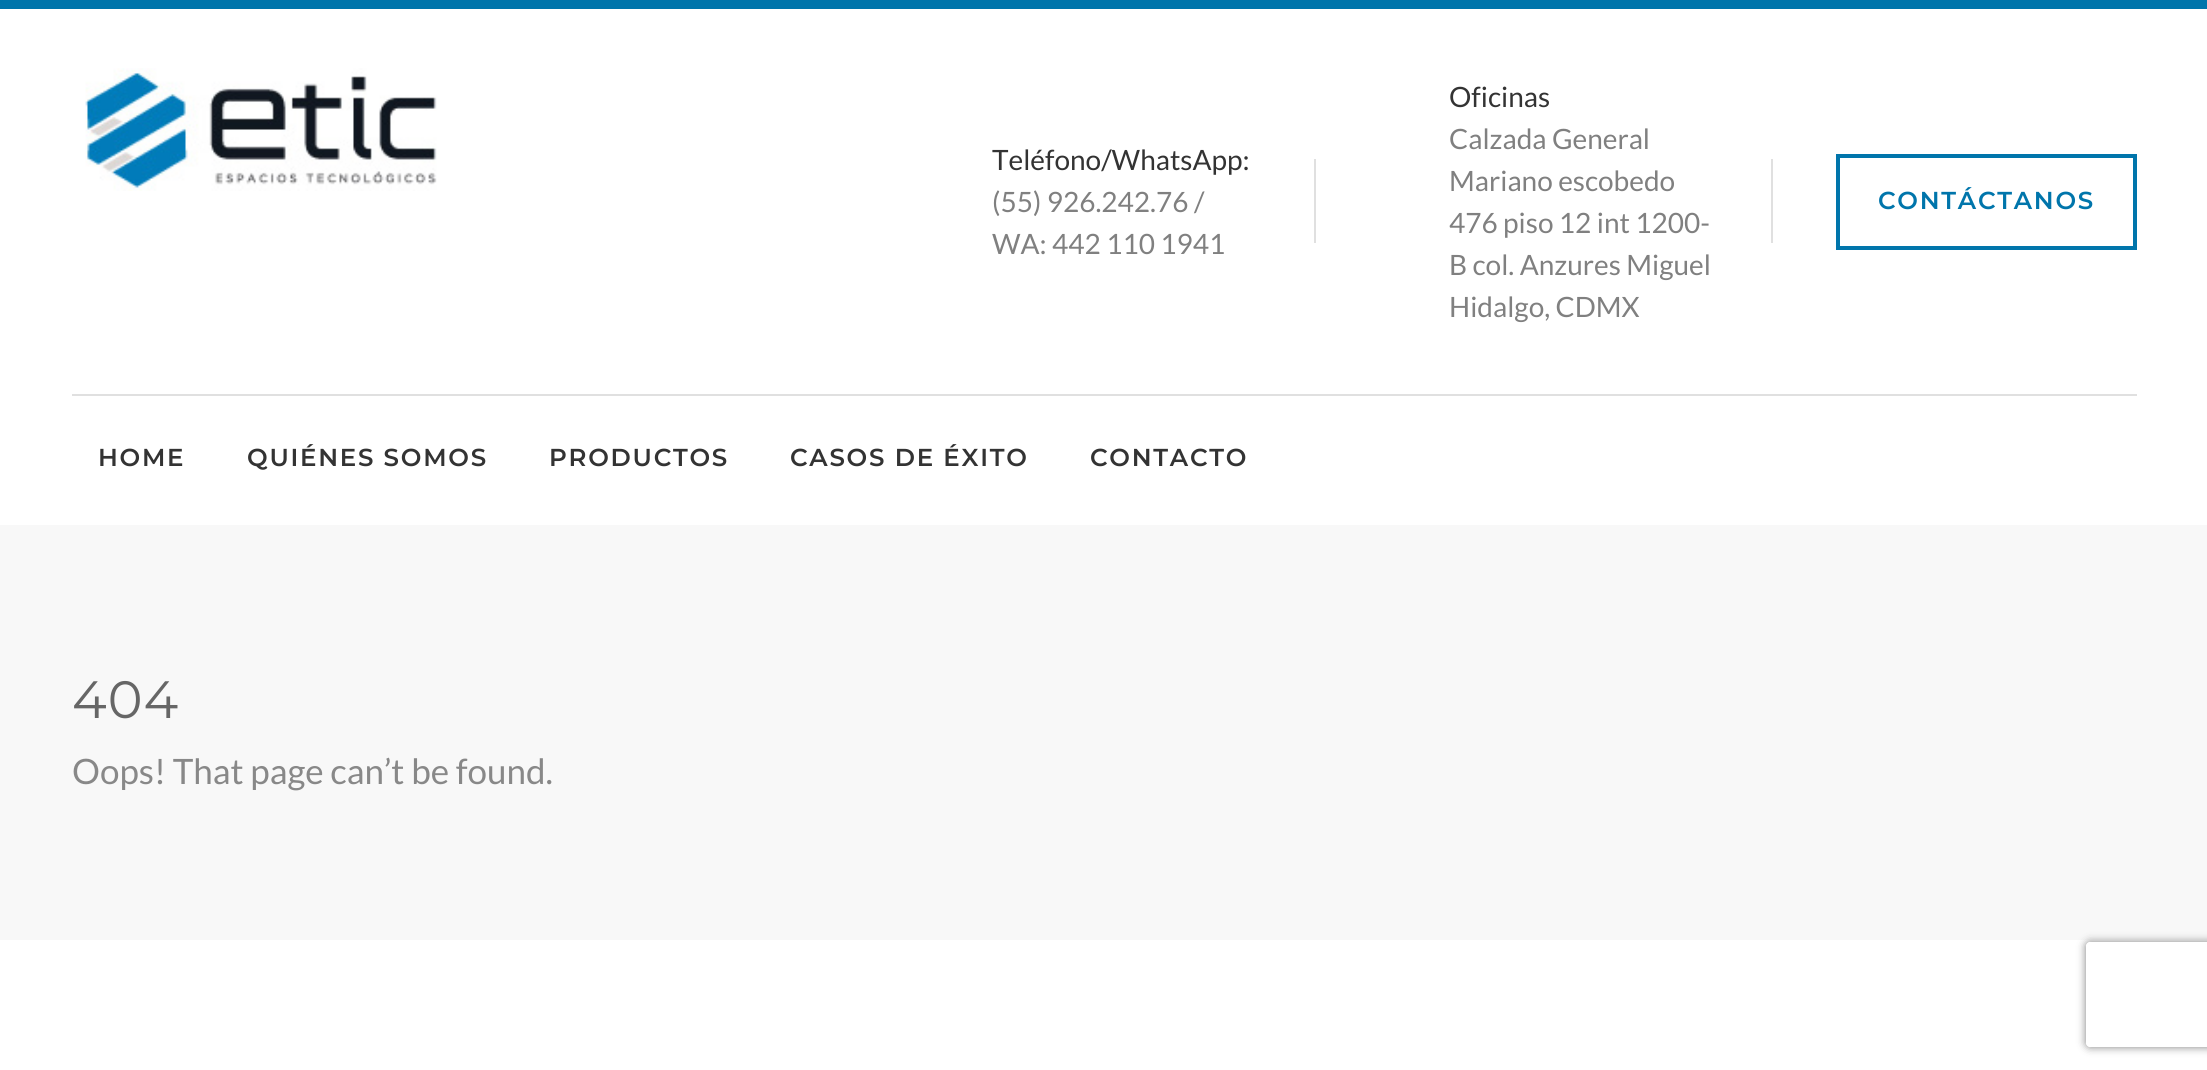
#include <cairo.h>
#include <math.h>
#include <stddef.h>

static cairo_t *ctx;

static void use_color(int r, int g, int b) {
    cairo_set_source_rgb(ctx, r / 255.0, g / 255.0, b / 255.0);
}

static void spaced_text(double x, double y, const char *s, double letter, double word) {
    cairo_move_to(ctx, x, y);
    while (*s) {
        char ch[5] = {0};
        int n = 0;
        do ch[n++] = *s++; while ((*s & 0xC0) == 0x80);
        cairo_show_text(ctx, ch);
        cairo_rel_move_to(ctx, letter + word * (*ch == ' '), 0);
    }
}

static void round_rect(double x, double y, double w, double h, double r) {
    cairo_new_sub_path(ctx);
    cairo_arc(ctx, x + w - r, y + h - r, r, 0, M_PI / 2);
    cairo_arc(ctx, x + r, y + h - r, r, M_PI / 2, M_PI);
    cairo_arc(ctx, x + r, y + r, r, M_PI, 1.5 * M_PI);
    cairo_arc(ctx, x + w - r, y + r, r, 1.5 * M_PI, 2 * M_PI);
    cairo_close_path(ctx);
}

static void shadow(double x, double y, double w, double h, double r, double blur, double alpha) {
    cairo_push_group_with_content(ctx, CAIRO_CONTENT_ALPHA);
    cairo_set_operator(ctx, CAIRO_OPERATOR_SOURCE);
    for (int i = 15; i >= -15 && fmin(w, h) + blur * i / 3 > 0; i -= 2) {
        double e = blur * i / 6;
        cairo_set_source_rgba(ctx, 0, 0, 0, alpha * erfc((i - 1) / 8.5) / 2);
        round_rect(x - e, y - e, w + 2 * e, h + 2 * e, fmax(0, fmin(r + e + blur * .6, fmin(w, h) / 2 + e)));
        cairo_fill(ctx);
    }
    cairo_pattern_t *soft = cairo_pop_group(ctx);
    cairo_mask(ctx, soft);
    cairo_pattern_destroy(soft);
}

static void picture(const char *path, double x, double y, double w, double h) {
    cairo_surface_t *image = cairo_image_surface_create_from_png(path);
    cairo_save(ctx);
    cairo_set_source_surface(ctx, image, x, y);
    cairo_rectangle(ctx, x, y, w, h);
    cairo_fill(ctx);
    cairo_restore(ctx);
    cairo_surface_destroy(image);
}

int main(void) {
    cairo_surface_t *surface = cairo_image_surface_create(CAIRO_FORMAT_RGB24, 2207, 1070);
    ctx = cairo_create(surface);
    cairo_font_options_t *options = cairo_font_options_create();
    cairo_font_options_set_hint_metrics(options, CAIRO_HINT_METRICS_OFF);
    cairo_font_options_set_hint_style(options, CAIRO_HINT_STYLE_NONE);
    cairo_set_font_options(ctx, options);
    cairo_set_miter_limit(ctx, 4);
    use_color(255, 255, 255);
    cairo_paint(ctx);
    use_color(0, 117, 171);
    cairo_rectangle(ctx, 0, 0, 2207, 9);
    cairo_fill(ctx);
    picture("img1.png", 72, 68, 376, 123);
    cairo_select_font_face(ctx, "Lato", CAIRO_FONT_SLANT_NORMAL, CAIRO_FONT_WEIGHT_NORMAL);
    cairo_set_font_size(ctx, 28);
    use_color(51, 51, 51);
    cairo_move_to(ctx, 992, 170);
    cairo_show_text(ctx, "Teléfono/WhatsApp:");
    use_color(128, 128, 128);
    cairo_move_to(ctx, 992, 212);
    cairo_show_text(ctx, "(55) 926.242.76 /");
    cairo_move_to(ctx, 992, 254);
    cairo_show_text(ctx, "WA: 442 110 1941");
    use_color(224, 224, 224);
    cairo_rectangle(ctx, 1314, 159, 2, 84);
    cairo_fill(ctx);
    use_color(51, 51, 51);
    cairo_move_to(ctx, 1449, 107);
    cairo_show_text(ctx, "Oficinas");
    use_color(128, 128, 128);
    cairo_move_to(ctx, 1449, 149);
    cairo_show_text(ctx, "Calzada General");
    cairo_move_to(ctx, 1449, 191);
    cairo_show_text(ctx, "Mariano escobedo");
    cairo_move_to(ctx, 1449, 233);
    cairo_show_text(ctx, "476 piso 12 int 1200-");
    cairo_move_to(ctx, 1449, 275);
    cairo_show_text(ctx, "B col. Anzures Miguel");
    cairo_move_to(ctx, 1449, 317);
    cairo_show_text(ctx, "Hidalgo, CDMX");
    use_color(224, 224, 224);
    cairo_rectangle(ctx, 1771, 159, 2, 84);
    cairo_fill(ctx);
    cairo_rectangle(ctx, 1838, 156, 297, 92);
    use_color(0, 117, 171);
    cairo_set_line_width(ctx, 4);
    cairo_stroke(ctx);
    cairo_select_font_face(ctx, "Montserrat SemiBold", CAIRO_FONT_SLANT_NORMAL, CAIRO_FONT_WEIGHT_NORMAL);
    cairo_set_font_size(ctx, 24.5);
    spaced_text(1878, 209, "CONTÁCTANOS", 1.75, 0);
    use_color(224, 224, 224);
    cairo_rectangle(ctx, 72, 394, 2065, 2);
    cairo_fill(ctx);
    use_color(51, 51, 51);
    spaced_text(98, 466, "HOME", 1.75, 0);
    spaced_text(247, 466, "QUIÉNES SOMOS", 1.75, 0);
    spaced_text(549, 466, "PRODUCTOS", 1.75, 0);
    spaced_text(790, 466, "CASOS DE ÉXITO", 1.75, 0);
    spaced_text(1090, 466, "CONTACTO", 1.75, 0);
    use_color(248, 248, 248);
    cairo_rectangle(ctx, 0, 525, 2207, 415);
    cairo_fill(ctx);
    cairo_select_font_face(ctx, "Montserrat", CAIRO_FONT_SLANT_NORMAL, CAIRO_FONT_WEIGHT_NORMAL);
    cairo_set_font_size(ctx, 52.5);
    use_color(102, 102, 102);
    spaced_text(72, 718, "404", 1, 0);
    cairo_select_font_face(ctx, "Lato", CAIRO_FONT_SLANT_NORMAL, CAIRO_FONT_WEIGHT_NORMAL);
    cairo_set_font_size(ctx, 35);
    use_color(136, 136, 136);
    cairo_move_to(ctx, 72, 784);
    cairo_show_text(ctx, "Oops! That page can’t be found.");
    cairo_save(ctx);
    cairo_set_fill_rule(ctx, CAIRO_FILL_RULE_EVEN_ODD);
    cairo_new_path(ctx);
    cairo_move_to(ctx, 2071, 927);
    cairo_line_to(ctx, 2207, 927);
    cairo_line_to(ctx, 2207, 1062);
    cairo_line_to(ctx, 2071, 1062);
    cairo_close_path(ctx);
    cairo_move_to(ctx, 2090, 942);
    cairo_line_to(ctx, 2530, 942);
    cairo_curve_to(ctx, 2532, 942, 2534, 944, 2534, 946);
    cairo_line_to(ctx, 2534, 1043);
    cairo_curve_to(ctx, 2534, 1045, 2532, 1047, 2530, 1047);
    cairo_line_to(ctx, 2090, 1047);
    cairo_curve_to(ctx, 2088, 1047, 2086, 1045, 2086, 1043);
    cairo_line_to(ctx, 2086, 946);
    cairo_curve_to(ctx, 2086, 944, 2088, 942, 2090, 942);
    cairo_close_path(ctx);
    cairo_clip(ctx);
    use_color(128, 128, 128);
    shadow(2086, 942, 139, 105, 4, 4.5, 1);
    cairo_restore(ctx);
    cairo_surface_write_to_png(surface, "result.png");
    cairo_font_options_destroy(options);
    cairo_destroy(ctx);
    cairo_surface_destroy(surface);
    return 0;
}
